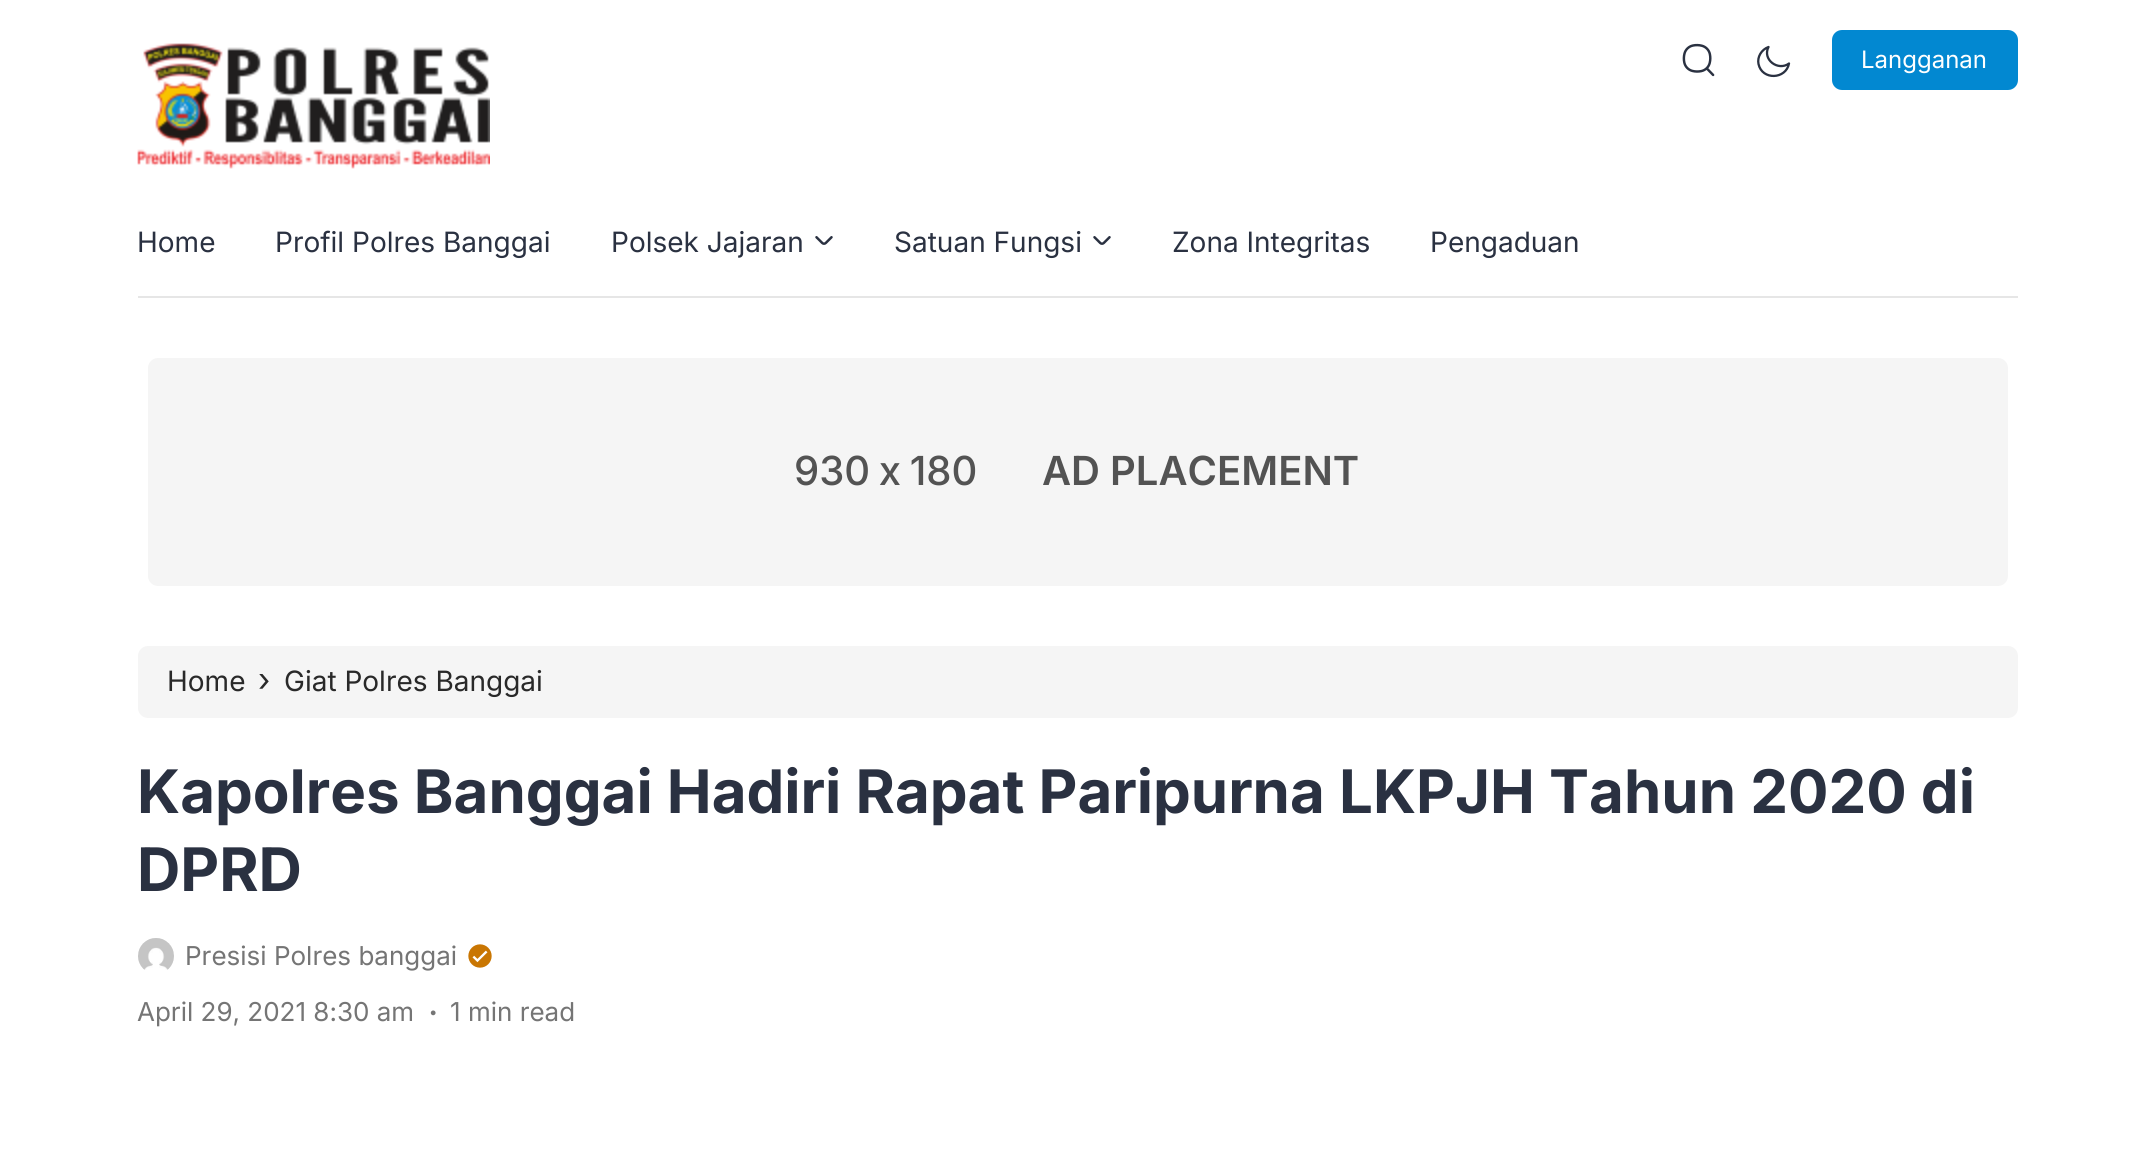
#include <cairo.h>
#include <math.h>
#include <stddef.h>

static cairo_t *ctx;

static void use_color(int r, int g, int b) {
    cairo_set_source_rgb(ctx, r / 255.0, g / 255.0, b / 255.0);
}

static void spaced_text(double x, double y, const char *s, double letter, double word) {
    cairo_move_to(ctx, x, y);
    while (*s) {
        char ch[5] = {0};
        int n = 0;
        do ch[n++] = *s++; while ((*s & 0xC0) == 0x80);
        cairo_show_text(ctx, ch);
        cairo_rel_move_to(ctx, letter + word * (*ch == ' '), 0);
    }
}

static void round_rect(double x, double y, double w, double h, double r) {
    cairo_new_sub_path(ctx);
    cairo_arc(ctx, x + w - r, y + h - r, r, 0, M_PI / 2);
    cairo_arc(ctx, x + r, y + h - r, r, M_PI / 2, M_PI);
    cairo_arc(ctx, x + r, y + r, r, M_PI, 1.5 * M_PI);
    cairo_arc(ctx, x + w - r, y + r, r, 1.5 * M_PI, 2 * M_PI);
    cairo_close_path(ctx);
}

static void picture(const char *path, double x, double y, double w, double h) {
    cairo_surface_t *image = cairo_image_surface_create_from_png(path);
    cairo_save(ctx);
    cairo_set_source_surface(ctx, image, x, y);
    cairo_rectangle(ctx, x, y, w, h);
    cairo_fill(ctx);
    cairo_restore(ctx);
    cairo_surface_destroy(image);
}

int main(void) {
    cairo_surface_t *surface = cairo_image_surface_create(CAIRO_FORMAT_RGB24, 2153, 1151);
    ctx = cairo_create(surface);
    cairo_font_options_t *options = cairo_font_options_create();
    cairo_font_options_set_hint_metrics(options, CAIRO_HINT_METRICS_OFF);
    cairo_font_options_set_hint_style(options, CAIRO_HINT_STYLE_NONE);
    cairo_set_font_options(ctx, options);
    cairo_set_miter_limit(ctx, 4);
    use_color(255, 255, 255);
    cairo_paint(ctx);
    picture("img1.png", 137, 43, 353, 126);
    picture("img2.png", 1682, 43, 33, 34);
    cairo_new_path(ctx);
    cairo_move_to(ctx, 1758.5, 64);
    cairo_curve_to(ctx, 1762, 80.5, 1786, 79.5, 1789, 63.5);
    cairo_curve_to(ctx, 1778, 71.5, 1762, 59.5, 1768.5, 47);
    cairo_curve_to(ctx, 1761.5, 49.5, 1757, 57, 1758.5, 64);
    cairo_close_path(ctx);
    use_color(42, 49, 65);
    cairo_set_line_width(ctx, 2.3);
    cairo_set_line_cap(ctx, CAIRO_LINE_CAP_ROUND);
    cairo_set_line_join(ctx, CAIRO_LINE_JOIN_ROUND);
    cairo_stroke(ctx);
    use_color(2, 136, 209);
    round_rect(1832, 30, 186, 60, 10);
    cairo_fill(ctx);
    cairo_select_font_face(ctx, "Inter", CAIRO_FONT_SLANT_NORMAL, CAIRO_FONT_WEIGHT_NORMAL);
    cairo_set_font_size(ctx, 24);
    use_color(255, 255, 255);
    cairo_move_to(ctx, 1861, 68);
    cairo_show_text(ctx, "Langganan");
    cairo_set_font_size(ctx, 28);
    use_color(42, 49, 65);
    cairo_move_to(ctx, 137, 252);
    cairo_show_text(ctx, "Home");
    cairo_move_to(ctx, 275, 252);
    cairo_show_text(ctx, "Profil Polres Banggai");
    cairo_move_to(ctx, 611, 252);
    cairo_show_text(ctx, "Polsek Jajaran");
    picture("img3.png", 815, 236, 18, 9);
    cairo_move_to(ctx, 894, 252);
    cairo_show_text(ctx, "Satuan Fungsi");
    picture("img3.png", 1093, 236, 18, 9);
    cairo_move_to(ctx, 1172, 252);
    cairo_show_text(ctx, "Zona Integritas");
    cairo_move_to(ctx, 1430, 252);
    cairo_show_text(ctx, "Pengaduan");
    use_color(230, 230, 230);
    cairo_rectangle(ctx, 138, 296, 1880, 2);
    cairo_fill(ctx);
    use_color(245, 245, 245);
    round_rect(148, 358, 1860, 228, 10);
    cairo_fill(ctx);
    cairo_select_font_face(ctx, "Inter Medium", CAIRO_FONT_SLANT_NORMAL, CAIRO_FONT_WEIGHT_NORMAL);
    cairo_set_font_size(ctx, 40);
    use_color(83, 83, 83);
    spaced_text(794, 485, "930 x 180", 0, -2);
    cairo_select_font_face(ctx, "Inter SemiBold", CAIRO_FONT_SLANT_NORMAL, CAIRO_FONT_WEIGHT_NORMAL);
    cairo_move_to(ctx, 1042, 485);
    cairo_show_text(ctx, "AD PLACEMENT");
    use_color(245, 245, 245);
    round_rect(138, 646, 1880, 72, 10);
    cairo_fill(ctx);
    cairo_select_font_face(ctx, "Inter", CAIRO_FONT_SLANT_NORMAL, CAIRO_FONT_WEIGHT_NORMAL);
    cairo_set_font_size(ctx, 28);
    use_color(41, 41, 41);
    cairo_move_to(ctx, 167, 691);
    cairo_show_text(ctx, "Home");
    cairo_set_font_size(ctx, 32);
    cairo_move_to(ctx, 258, 691);
    cairo_show_text(ctx, "›");
    cairo_set_font_size(ctx, 28);
    cairo_move_to(ctx, 284, 691);
    cairo_show_text(ctx, "Giat Polres Banggai");
    cairo_select_font_face(ctx, "Inter", CAIRO_FONT_SLANT_NORMAL, CAIRO_FONT_WEIGHT_BOLD);
    cairo_set_font_size(ctx, 60);
    use_color(42, 49, 65);
    cairo_move_to(ctx, 137, 813);
    cairo_show_text(ctx, "Kapolres Banggai Hadiri Rapat Paripurna LKPJH Tahun 2020 di");
    cairo_move_to(ctx, 137, 891);
    cairo_show_text(ctx, "DPRD");
    picture("img4.png", 138, 938, 36, 32);
    cairo_select_font_face(ctx, "Inter", CAIRO_FONT_SLANT_NORMAL, CAIRO_FONT_WEIGHT_NORMAL);
    cairo_set_font_size(ctx, 26);
    use_color(117, 117, 117);
    cairo_move_to(ctx, 185, 965);
    cairo_show_text(ctx, "Presisi Polres banggai");
    picture("img5.png", 468, 944, 24, 24);
    cairo_move_to(ctx, 137, 1021);
    cairo_show_text(ctx, "April 29, 2021 8:30 am");
    cairo_set_font_size(ctx, 36);
    cairo_move_to(ctx, 428, 1015);
    cairo_show_text(ctx, ".");
    cairo_set_font_size(ctx, 26);
    cairo_move_to(ctx, 450, 1021);
    cairo_show_text(ctx, "1 min read");
    cairo_surface_write_to_png(surface, "result.png");
    cairo_font_options_destroy(options);
    cairo_destroy(ctx);
    cairo_surface_destroy(surface);
    return 0;
}
